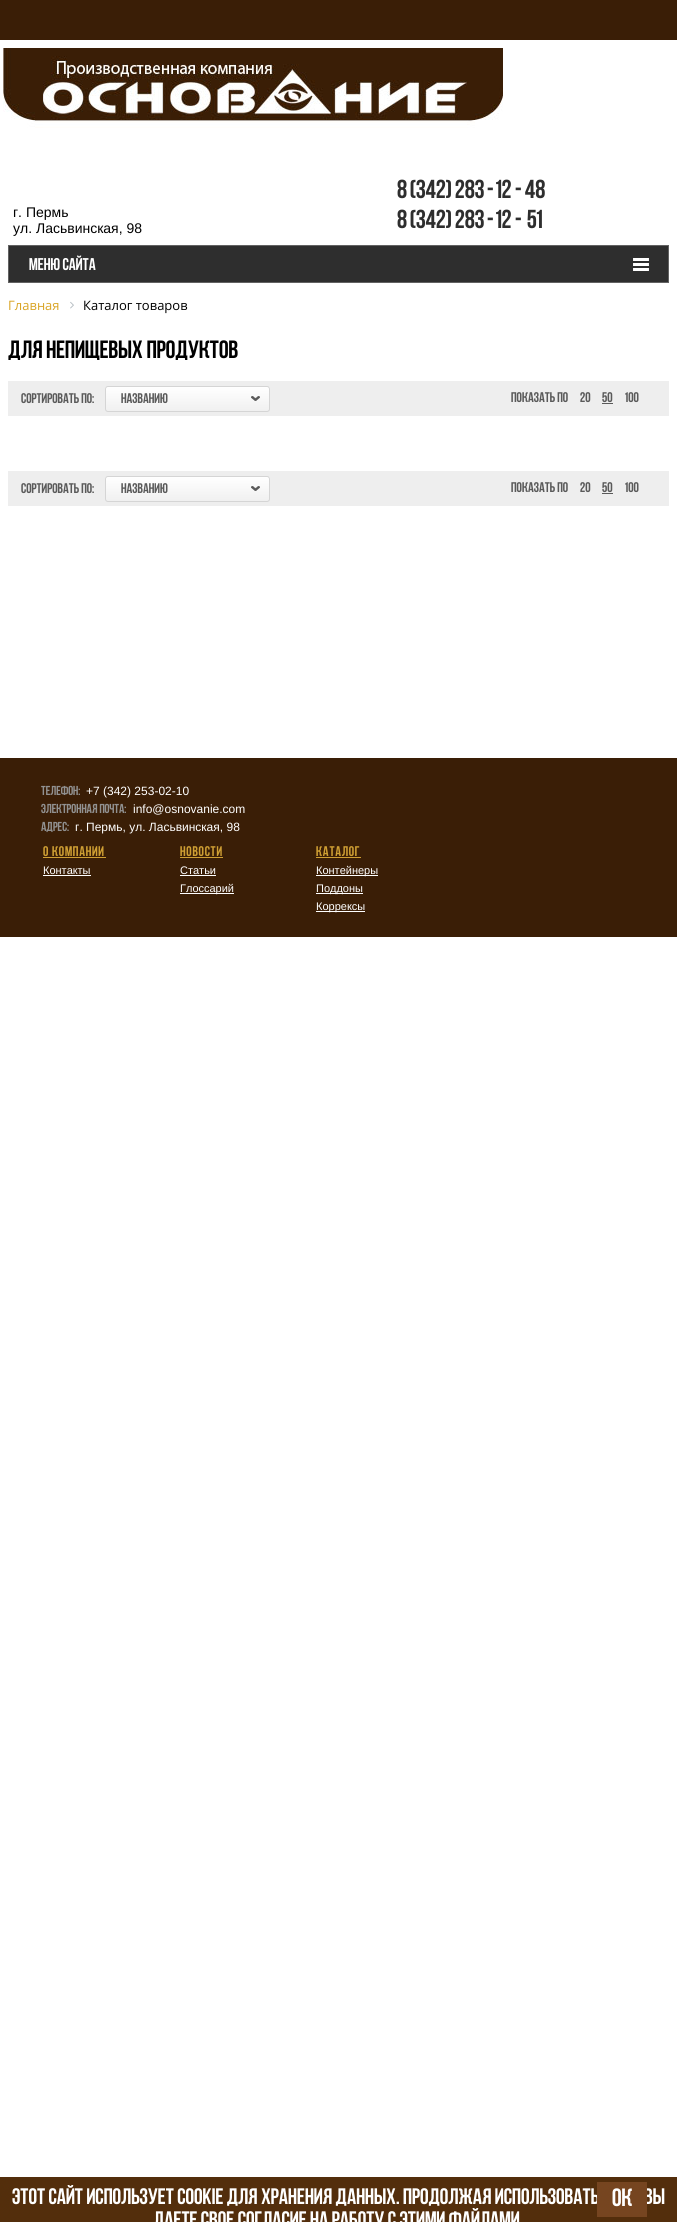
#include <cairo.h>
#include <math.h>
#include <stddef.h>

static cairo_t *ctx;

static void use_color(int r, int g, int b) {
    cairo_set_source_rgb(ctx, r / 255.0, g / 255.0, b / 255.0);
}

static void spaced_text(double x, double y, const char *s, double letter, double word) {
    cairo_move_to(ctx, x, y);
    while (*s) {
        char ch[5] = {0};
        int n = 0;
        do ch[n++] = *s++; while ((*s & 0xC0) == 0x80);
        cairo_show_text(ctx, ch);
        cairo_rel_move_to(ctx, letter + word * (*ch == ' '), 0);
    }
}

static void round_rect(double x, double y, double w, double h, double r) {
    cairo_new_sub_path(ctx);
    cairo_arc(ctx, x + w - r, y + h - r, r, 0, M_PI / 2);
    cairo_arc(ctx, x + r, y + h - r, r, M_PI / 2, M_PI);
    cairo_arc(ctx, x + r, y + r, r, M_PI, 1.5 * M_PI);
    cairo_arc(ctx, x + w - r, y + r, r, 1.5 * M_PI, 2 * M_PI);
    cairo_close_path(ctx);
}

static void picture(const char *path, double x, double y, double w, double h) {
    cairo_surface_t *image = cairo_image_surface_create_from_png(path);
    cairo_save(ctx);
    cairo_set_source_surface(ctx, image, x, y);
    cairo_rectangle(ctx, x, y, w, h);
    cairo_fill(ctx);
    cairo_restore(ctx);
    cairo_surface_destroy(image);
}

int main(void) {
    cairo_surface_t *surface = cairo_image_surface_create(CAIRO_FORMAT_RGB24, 677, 2222);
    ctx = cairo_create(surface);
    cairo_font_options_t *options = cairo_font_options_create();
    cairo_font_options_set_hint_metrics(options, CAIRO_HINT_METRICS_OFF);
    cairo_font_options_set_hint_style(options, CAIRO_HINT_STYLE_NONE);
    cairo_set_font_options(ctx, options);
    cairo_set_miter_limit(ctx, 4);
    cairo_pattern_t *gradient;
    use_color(255, 255, 255);
    cairo_paint(ctx);
    use_color(58, 30, 6);
    cairo_rectangle(ctx, 0, 0, 677, 40);
    cairo_fill(ctx);
    picture("img1.png", 3, 48, 500, 80);
    cairo_select_font_face(ctx, "Liberation Sans", CAIRO_FONT_SLANT_NORMAL, CAIRO_FONT_WEIGHT_NORMAL);
    cairo_set_font_size(ctx, 14);
    use_color(0, 0, 0);
    cairo_move_to(ctx, 13, 217);
    cairo_show_text(ctx, "г. Пермь");
    cairo_move_to(ctx, 13, 233);
    cairo_show_text(ctx, "ул. Ласьвинская, 98");
    cairo_select_font_face(ctx, "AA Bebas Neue", CAIRO_FONT_SLANT_NORMAL, CAIRO_FONT_WEIGHT_NORMAL);
    cairo_set_font_size(ctx, 26);
    use_color(46, 46, 46);
    cairo_move_to(ctx, 397, 198);
    cairo_show_text(ctx, "8");
    cairo_move_to(ctx, 410, 198);
    cairo_show_text(ctx, "(342)");
    cairo_move_to(ctx, 455, 198);
    cairo_show_text(ctx, "283");
    cairo_move_to(ctx, 487, 198);
    cairo_show_text(ctx, "-");
    cairo_move_to(ctx, 496, 198);
    cairo_show_text(ctx, "12");
    cairo_move_to(ctx, 515, 198);
    cairo_show_text(ctx, "-");
    cairo_move_to(ctx, 525, 198);
    cairo_show_text(ctx, "48");
    cairo_move_to(ctx, 397, 228);
    cairo_show_text(ctx, "8");
    cairo_move_to(ctx, 410, 228);
    cairo_show_text(ctx, "(342)");
    cairo_move_to(ctx, 455, 228);
    cairo_show_text(ctx, "283");
    cairo_move_to(ctx, 487, 228);
    cairo_show_text(ctx, "-");
    cairo_move_to(ctx, 496, 228);
    cairo_show_text(ctx, "12");
    cairo_move_to(ctx, 515, 228);
    cairo_show_text(ctx, "-");
    cairo_move_to(ctx, 527, 228);
    cairo_show_text(ctx, "51");
    cairo_rectangle(ctx, 9, 246, 659, 36);
    cairo_fill(ctx);
    picture("img2.png", 633, 258, 16, 13);
    cairo_rectangle(ctx, 8.5, 245.5, 660, 37);
    use_color(98, 98, 98);
    cairo_set_line_width(ctx, 1);
    cairo_stroke(ctx);
    cairo_set_font_size(ctx, 17);
    use_color(255, 255, 255);
    cairo_move_to(ctx, 29, 270);
    cairo_show_text(ctx, "Меню сайта");
    cairo_select_font_face(ctx, "Open Sans", CAIRO_FONT_SLANT_NORMAL, CAIRO_FONT_WEIGHT_NORMAL);
    cairo_set_font_size(ctx, 13);
    use_color(217, 164, 36);
    cairo_move_to(ctx, 8, 310);
    cairo_show_text(ctx, "Главная");
    picture("img3.png", 70, 301, 4, 8);
    use_color(0, 0, 0);
    cairo_move_to(ctx, 83, 310);
    cairo_show_text(ctx, "Каталог товаров");
    cairo_select_font_face(ctx, "AA Bebas Neue", CAIRO_FONT_SLANT_NORMAL, CAIRO_FONT_WEIGHT_NORMAL);
    cairo_set_font_size(ctx, 25);
    cairo_move_to(ctx, 8, 358);
    cairo_show_text(ctx, "ДЛЯ НЕПИЩЕВЫХ ПРОДУКТОВ");
    use_color(238, 238, 238);
    cairo_rectangle(ctx, 8, 381, 661, 35);
    cairo_fill(ctx);
    cairo_set_font_size(ctx, 14);
    use_color(90, 90, 90);
    cairo_move_to(ctx, 21, 403);
    cairo_show_text(ctx, "СОРТИРОВАТЬ ПО:");
    cairo_save(ctx);
    round_rect(105, 386, 165, 26, 3);
    cairo_clip(ctx);
    gradient = cairo_pattern_create_linear(188, 387, 188, 411);
    cairo_pattern_add_color_stop_rgba(gradient, 0.01, 1, 1, 1, 1);
    cairo_pattern_add_color_stop_rgba(gradient, 1, 0.941, 0.941, 0.941, 1);
    cairo_set_source(ctx, gradient);
    cairo_pattern_destroy(gradient);
    cairo_rectangle(ctx, 105, 387, 165, 24);
    cairo_fill(ctx);
    cairo_restore(ctx);
    round_rect(105.5, 386.5, 164, 25, 2.5);
    use_color(213, 213, 213);
    cairo_stroke(ctx);
    use_color(90, 90, 90);
    cairo_move_to(ctx, 121, 403);
    cairo_show_text(ctx, "НАЗВАНИЮ");
    picture("img4.png", 251, 396, 9, 5);
    cairo_move_to(ctx, 511, 402);
    cairo_show_text(ctx, "ПОКАЗАТЬ ПО");
    cairo_move_to(ctx, 580, 402);
    cairo_show_text(ctx, "20");
    cairo_move_to(ctx, 602, 402);
    cairo_show_text(ctx, "50");
    cairo_rectangle(ctx, 602, 403, 11, 1);
    cairo_fill(ctx);
    cairo_move_to(ctx, 625, 402);
    cairo_show_text(ctx, "100");
    use_color(238, 238, 238);
    cairo_rectangle(ctx, 8, 471, 661, 35);
    cairo_fill(ctx);
    use_color(90, 90, 90);
    cairo_move_to(ctx, 21, 493);
    cairo_show_text(ctx, "СОРТИРОВАТЬ ПО:");
    cairo_save(ctx);
    round_rect(105, 476, 165, 26, 3);
    cairo_clip(ctx);
    gradient = cairo_pattern_create_linear(188, 477, 188, 501);
    cairo_pattern_add_color_stop_rgba(gradient, 0.01, 1, 1, 1, 1);
    cairo_pattern_add_color_stop_rgba(gradient, 1, 0.941, 0.941, 0.941, 1);
    cairo_set_source(ctx, gradient);
    cairo_pattern_destroy(gradient);
    cairo_rectangle(ctx, 105, 477, 165, 24);
    cairo_fill(ctx);
    cairo_restore(ctx);
    round_rect(105.5, 476.5, 164, 25, 2.5);
    use_color(213, 213, 213);
    cairo_stroke(ctx);
    use_color(90, 90, 90);
    cairo_move_to(ctx, 121, 493);
    cairo_show_text(ctx, "НАЗВАНИЮ");
    picture("img4.png", 251, 486, 9, 5);
    cairo_move_to(ctx, 511, 492);
    cairo_show_text(ctx, "ПОКАЗАТЬ ПО");
    cairo_move_to(ctx, 580, 492);
    cairo_show_text(ctx, "20");
    cairo_move_to(ctx, 602, 492);
    cairo_show_text(ctx, "50");
    cairo_rectangle(ctx, 602, 493, 11, 1);
    cairo_fill(ctx);
    cairo_move_to(ctx, 625, 492);
    cairo_show_text(ctx, "100");
    use_color(58, 30, 6);
    cairo_rectangle(ctx, 0, 758, 677, 179);
    cairo_fill(ctx);
    cairo_set_font_size(ctx, 13);
    use_color(145, 145, 145);
    cairo_move_to(ctx, 41, 795);
    cairo_show_text(ctx, "Телефон:");
    cairo_select_font_face(ctx, "Liberation Sans", CAIRO_FONT_SLANT_NORMAL, CAIRO_FONT_WEIGHT_NORMAL);
    cairo_set_font_size(ctx, 12);
    use_color(255, 255, 255);
    cairo_move_to(ctx, 86, 795);
    cairo_show_text(ctx, "+7 (342) 253-02-10");
    cairo_select_font_face(ctx, "AA Bebas Neue", CAIRO_FONT_SLANT_NORMAL, CAIRO_FONT_WEIGHT_NORMAL);
    cairo_set_font_size(ctx, 13);
    use_color(145, 145, 145);
    cairo_move_to(ctx, 41, 813);
    cairo_show_text(ctx, "Электронная почта:");
    cairo_select_font_face(ctx, "Liberation Sans", CAIRO_FONT_SLANT_NORMAL, CAIRO_FONT_WEIGHT_NORMAL);
    cairo_set_font_size(ctx, 12);
    use_color(255, 255, 255);
    cairo_move_to(ctx, 133, 813);
    cairo_show_text(ctx, "info@osnovanie.com");
    cairo_select_font_face(ctx, "AA Bebas Neue", CAIRO_FONT_SLANT_NORMAL, CAIRO_FONT_WEIGHT_NORMAL);
    cairo_set_font_size(ctx, 13);
    use_color(145, 145, 145);
    cairo_move_to(ctx, 41, 831);
    cairo_show_text(ctx, "Адрес:");
    cairo_select_font_face(ctx, "Liberation Sans", CAIRO_FONT_SLANT_NORMAL, CAIRO_FONT_WEIGHT_NORMAL);
    cairo_set_font_size(ctx, 12);
    use_color(255, 255, 255);
    cairo_move_to(ctx, 75, 831);
    cairo_show_text(ctx, "г. Пермь, ул. Ласьвинская, 98");
    cairo_select_font_face(ctx, "AA Bebas Neue", CAIRO_FONT_SLANT_NORMAL, CAIRO_FONT_WEIGHT_NORMAL);
    cairo_set_font_size(ctx, 14);
    use_color(207, 159, 51);
    spaced_text(43, 856, "О КОМПАНИИ", 0.75, 0);
    cairo_rectangle(ctx, 43, 857, 63, 1);
    cairo_fill(ctx);
    cairo_select_font_face(ctx, "Liberation Sans", CAIRO_FONT_SLANT_NORMAL, CAIRO_FONT_WEIGHT_NORMAL);
    cairo_set_font_size(ctx, 11);
    use_color(255, 255, 255);
    cairo_move_to(ctx, 43, 874);
    cairo_show_text(ctx, "Контакты");
    cairo_rectangle(ctx, 43, 875, 48, 1);
    cairo_fill(ctx);
    cairo_select_font_face(ctx, "AA Bebas Neue", CAIRO_FONT_SLANT_NORMAL, CAIRO_FONT_WEIGHT_NORMAL);
    cairo_set_font_size(ctx, 14);
    use_color(207, 159, 51);
    spaced_text(180, 856, "НОВОСТИ", 0.75, 0);
    cairo_rectangle(ctx, 180, 857, 43, 1);
    cairo_fill(ctx);
    cairo_select_font_face(ctx, "Liberation Sans", CAIRO_FONT_SLANT_NORMAL, CAIRO_FONT_WEIGHT_NORMAL);
    cairo_set_font_size(ctx, 11);
    use_color(255, 255, 255);
    cairo_move_to(ctx, 180, 874);
    cairo_show_text(ctx, "Статьи");
    cairo_rectangle(ctx, 180, 875, 36, 1);
    cairo_fill(ctx);
    cairo_rectangle(ctx, 180, 893, 54, 1);
    cairo_fill(ctx);
    cairo_move_to(ctx, 180, 892);
    cairo_show_text(ctx, "Глоссарий");
    cairo_select_font_face(ctx, "AA Bebas Neue", CAIRO_FONT_SLANT_NORMAL, CAIRO_FONT_WEIGHT_NORMAL);
    cairo_set_font_size(ctx, 14);
    use_color(207, 159, 51);
    spaced_text(316, 856, "КАТАЛОГ", 0.75, 0);
    cairo_rectangle(ctx, 316, 857, 45, 1);
    cairo_fill(ctx);
    use_color(255, 255, 255);
    cairo_rectangle(ctx, 316, 875, 62, 1);
    cairo_fill(ctx);
    cairo_select_font_face(ctx, "Liberation Sans", CAIRO_FONT_SLANT_NORMAL, CAIRO_FONT_WEIGHT_NORMAL);
    cairo_set_font_size(ctx, 11);
    cairo_move_to(ctx, 316, 874);
    cairo_show_text(ctx, "Контейнеры");
    cairo_rectangle(ctx, 316, 893, 47, 1);
    cairo_fill(ctx);
    cairo_move_to(ctx, 316, 892);
    cairo_show_text(ctx, "Поддоны");
    cairo_rectangle(ctx, 316, 911, 49, 1);
    cairo_fill(ctx);
    cairo_move_to(ctx, 316, 910);
    cairo_show_text(ctx, "Коррексы");
    use_color(83, 46, 12);
    cairo_rectangle(ctx, 0, 2177, 677, 45);
    cairo_fill(ctx);
    cairo_select_font_face(ctx, "AA Bebas Neue", CAIRO_FONT_SLANT_NORMAL, CAIRO_FONT_WEIGHT_NORMAL);
    cairo_set_font_size(ctx, 22.4);
    use_color(255, 255, 255);
    cairo_move_to(ctx, 12, 2204);
    cairo_show_text(ctx, "Этот сайт использует cookie для хранения данных. Продолжая использовать");
    cairo_move_to(ctx, 644, 2204);
    cairo_show_text(ctx, "Вы");
    use_color(118, 69, 32);
    cairo_rectangle(ctx, 597, 2182, 50, 35);
    cairo_fill(ctx);
    cairo_set_font_size(ctx, 25);
    use_color(255, 255, 255);
    cairo_move_to(ctx, 612, 2206);
    cairo_show_text(ctx, "ОК");
    cairo_set_font_size(ctx, 22.4);
    cairo_move_to(ctx, 153, 2227);
    cairo_show_text(ctx, "даете свое согласие на работу с этими файлами");
    cairo_surface_write_to_png(surface, "result.png");
    cairo_font_options_destroy(options);
    cairo_destroy(ctx);
    cairo_surface_destroy(surface);
    return 0;
}
